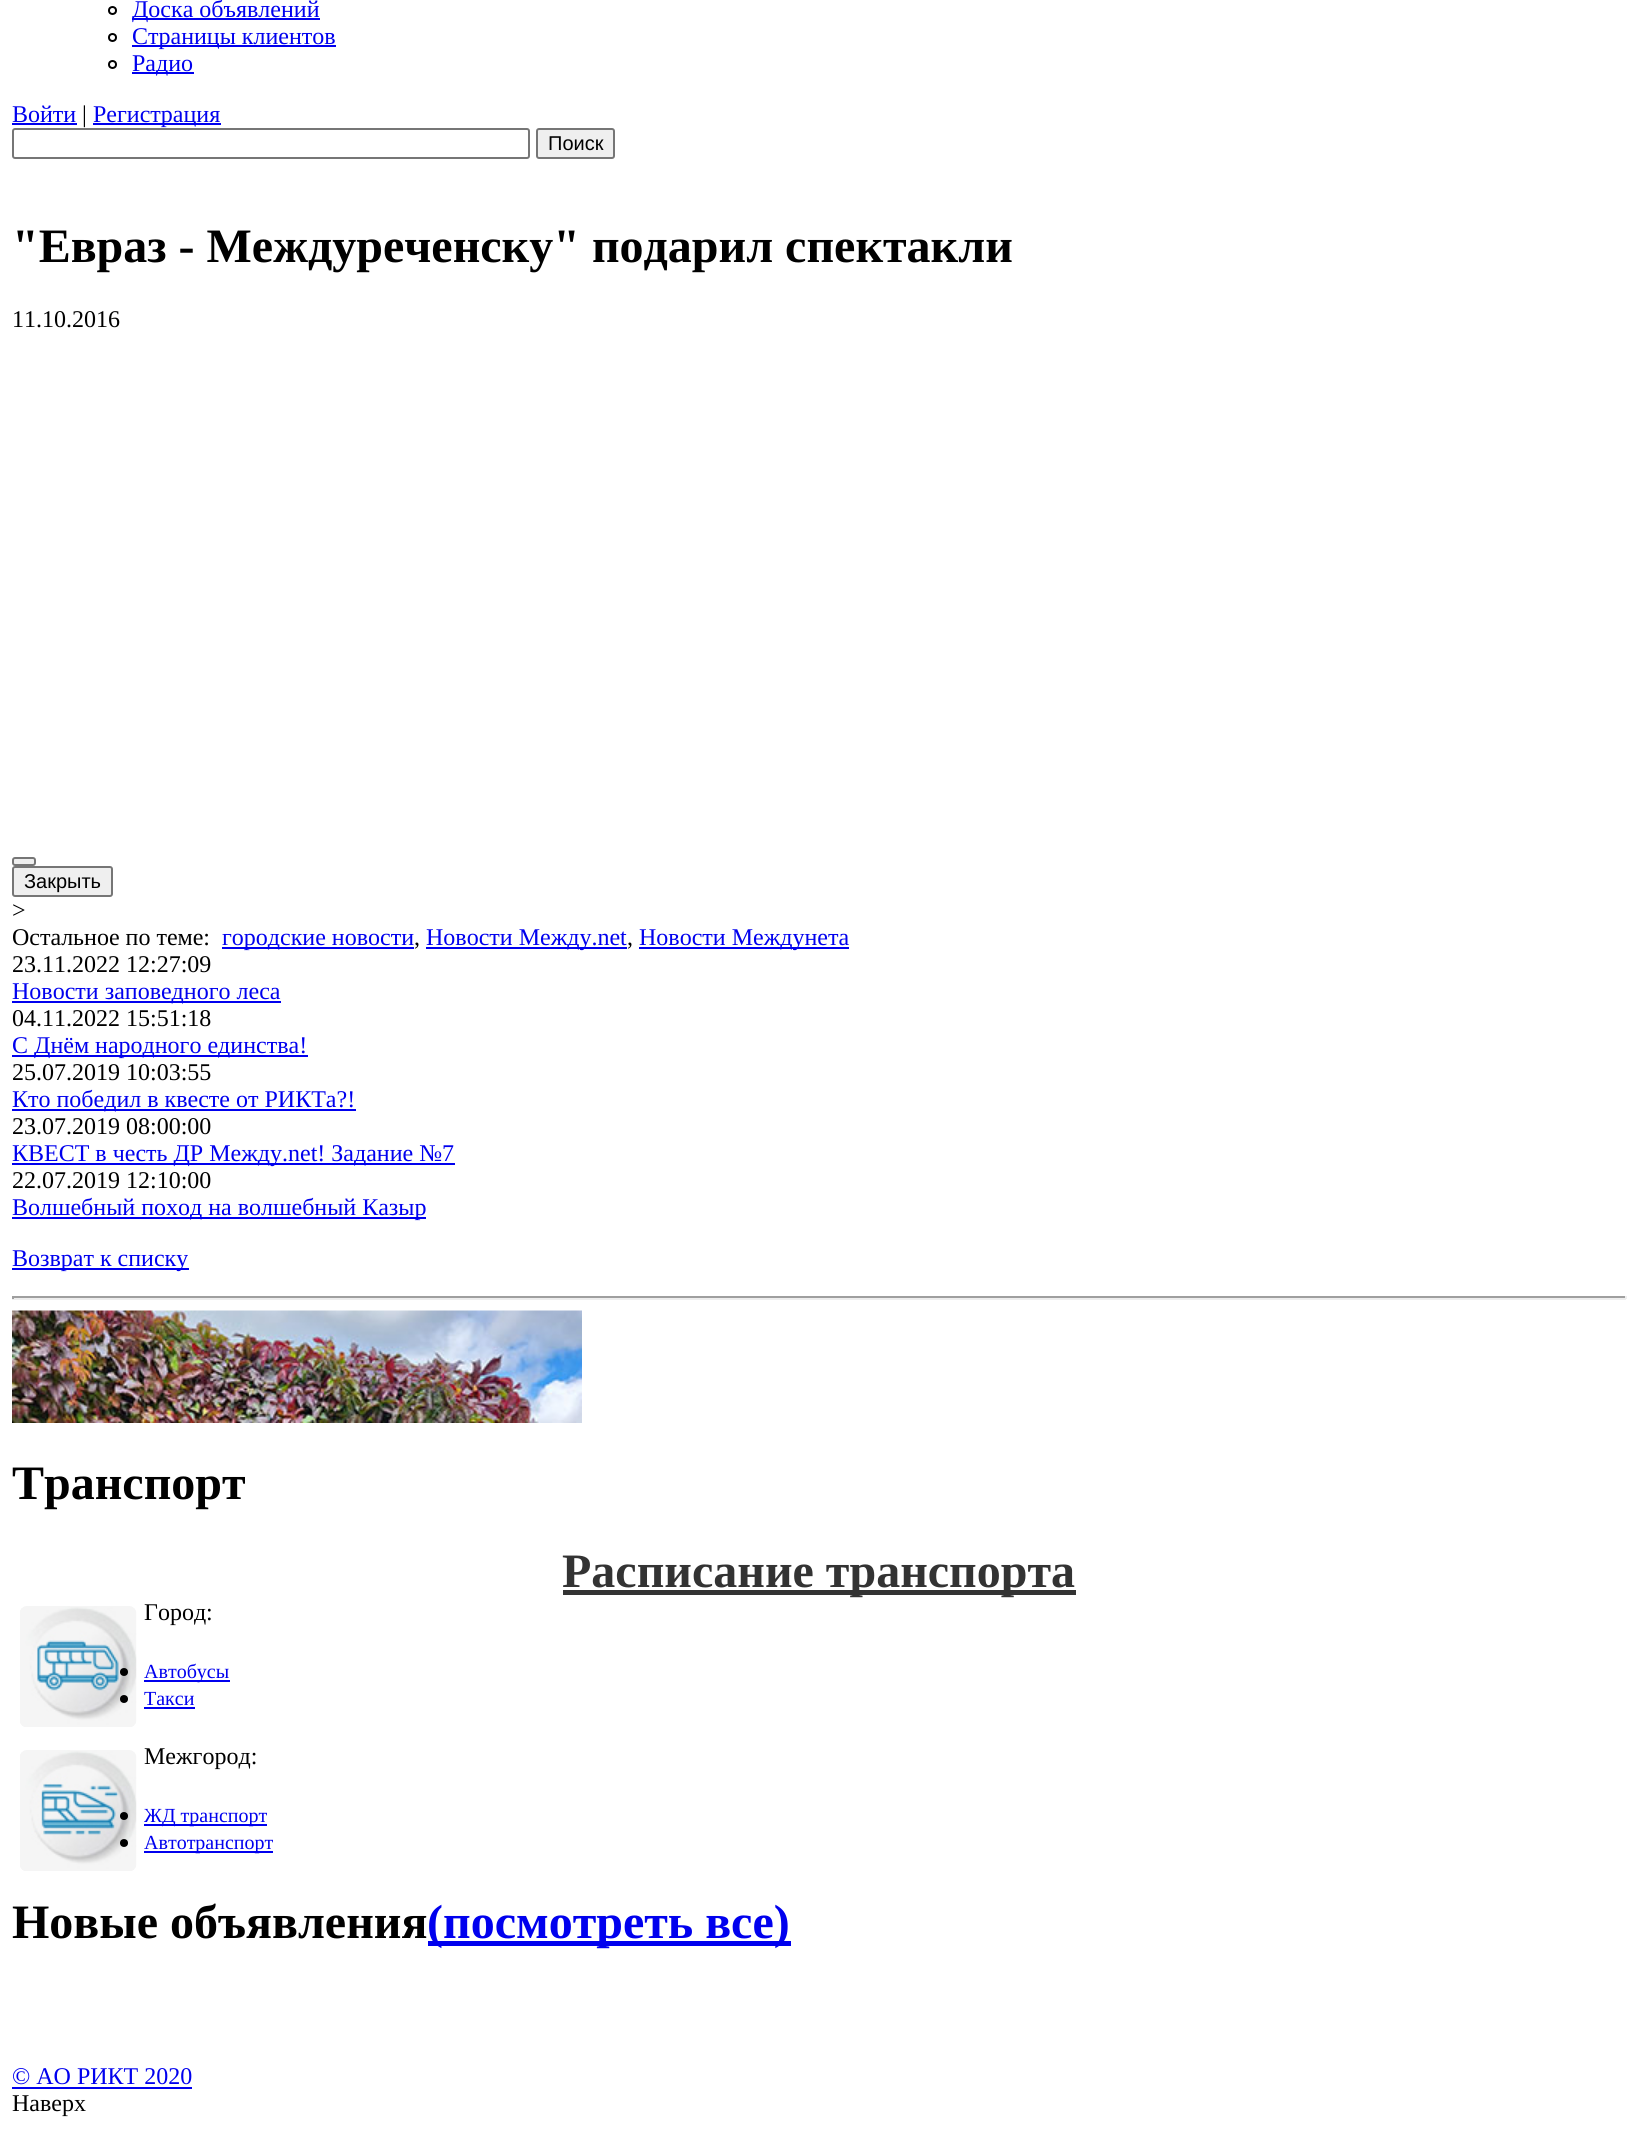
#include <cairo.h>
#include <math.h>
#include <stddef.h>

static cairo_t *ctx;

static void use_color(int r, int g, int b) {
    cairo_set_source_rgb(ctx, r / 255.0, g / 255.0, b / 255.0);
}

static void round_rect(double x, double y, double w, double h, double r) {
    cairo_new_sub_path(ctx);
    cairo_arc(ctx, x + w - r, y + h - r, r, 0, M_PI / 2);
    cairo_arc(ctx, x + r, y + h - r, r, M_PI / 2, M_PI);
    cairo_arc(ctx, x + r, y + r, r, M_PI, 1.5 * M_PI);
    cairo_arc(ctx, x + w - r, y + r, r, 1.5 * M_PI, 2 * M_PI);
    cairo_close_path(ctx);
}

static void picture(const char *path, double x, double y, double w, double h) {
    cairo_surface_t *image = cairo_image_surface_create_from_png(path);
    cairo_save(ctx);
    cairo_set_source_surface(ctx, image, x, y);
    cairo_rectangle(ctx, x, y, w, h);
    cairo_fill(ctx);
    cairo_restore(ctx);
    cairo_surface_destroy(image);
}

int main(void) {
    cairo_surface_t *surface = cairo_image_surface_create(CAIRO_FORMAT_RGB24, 1637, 2130);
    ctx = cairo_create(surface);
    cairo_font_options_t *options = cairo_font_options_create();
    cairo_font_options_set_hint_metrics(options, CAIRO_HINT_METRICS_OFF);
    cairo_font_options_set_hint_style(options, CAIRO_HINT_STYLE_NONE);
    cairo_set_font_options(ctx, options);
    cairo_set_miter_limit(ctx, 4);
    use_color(255, 255, 255);
    cairo_paint(ctx);
    cairo_arc(ctx, 112.5, 10.5, 3.5, 0, 2 * M_PI);
    use_color(0, 0, 0);
    cairo_stroke(ctx);
    use_color(0, 0, 238);
    cairo_rectangle(ctx, 132, 18, 188, 2);
    cairo_fill(ctx);
    cairo_select_font_face(ctx, "Liberation Serif", CAIRO_FONT_SLANT_NORMAL, CAIRO_FONT_WEIGHT_NORMAL);
    cairo_set_font_size(ctx, 24);
    cairo_move_to(ctx, 132, 17);
    cairo_show_text(ctx, "Доска объявлений");
    cairo_new_path(ctx);
    cairo_arc(ctx, 112.5, 37.5, 3.5, 0, 2 * M_PI);
    use_color(0, 0, 0);
    cairo_stroke(ctx);
    use_color(0, 0, 238);
    cairo_rectangle(ctx, 132, 45, 204, 2);
    cairo_fill(ctx);
    cairo_move_to(ctx, 132, 44);
    cairo_show_text(ctx, "Страницы клиентов");
    cairo_new_path(ctx);
    cairo_arc(ctx, 112.5, 64.5, 3.5, 0, 2 * M_PI);
    use_color(0, 0, 0);
    cairo_stroke(ctx);
    use_color(0, 0, 238);
    cairo_rectangle(ctx, 132, 72, 62, 2);
    cairo_fill(ctx);
    cairo_move_to(ctx, 132, 71);
    cairo_show_text(ctx, "Радио");
    cairo_move_to(ctx, 12, 122);
    cairo_show_text(ctx, "Войти");
    cairo_rectangle(ctx, 12, 123, 65, 2);
    cairo_fill(ctx);
    use_color(0, 0, 0);
    cairo_move_to(ctx, 82, 122);
    cairo_show_text(ctx, "|");
    use_color(0, 0, 238);
    cairo_rectangle(ctx, 93, 123, 128, 2);
    cairo_fill(ctx);
    cairo_move_to(ctx, 93, 122);
    cairo_show_text(ctx, "Регистрация");
    round_rect(13, 129, 516, 29, 2);
    use_color(118, 118, 118);
    cairo_stroke(ctx);
    use_color(239, 239, 239);
    round_rect(537, 129, 77, 29, 2);
    cairo_fill_preserve(ctx);
    use_color(118, 118, 118);
    cairo_stroke(ctx);
    cairo_select_font_face(ctx, "Liberation Sans", CAIRO_FONT_SLANT_NORMAL, CAIRO_FONT_WEIGHT_NORMAL);
    cairo_set_font_size(ctx, 20);
    use_color(0, 0, 0);
    cairo_move_to(ctx, 548, 150);
    cairo_show_text(ctx, "Поиск");
    cairo_select_font_face(ctx, "Liberation Serif", CAIRO_FONT_SLANT_NORMAL, CAIRO_FONT_WEIGHT_BOLD);
    cairo_set_font_size(ctx, 48);
    cairo_move_to(ctx, 12, 262);
    cairo_show_text(ctx, "\"Евраз - Междуреченску\" подарил спектакли");
    cairo_select_font_face(ctx, "Liberation Serif", CAIRO_FONT_SLANT_NORMAL, CAIRO_FONT_WEIGHT_NORMAL);
    cairo_set_font_size(ctx, 24);
    cairo_move_to(ctx, 12, 327);
    cairo_show_text(ctx, "11.10.2016");
    use_color(239, 239, 239);
    round_rect(13, 858, 22, 7, 2);
    cairo_fill_preserve(ctx);
    use_color(118, 118, 118);
    cairo_stroke(ctx);
    use_color(239, 239, 239);
    round_rect(13, 867, 99, 29, 2);
    cairo_fill_preserve(ctx);
    use_color(118, 118, 118);
    cairo_stroke(ctx);
    cairo_select_font_face(ctx, "Liberation Sans", CAIRO_FONT_SLANT_NORMAL, CAIRO_FONT_WEIGHT_NORMAL);
    cairo_set_font_size(ctx, 20);
    use_color(0, 0, 0);
    cairo_move_to(ctx, 24, 888);
    cairo_show_text(ctx, "Закрыть");
    cairo_select_font_face(ctx, "Liberation Serif", CAIRO_FONT_SLANT_NORMAL, CAIRO_FONT_WEIGHT_NORMAL);
    cairo_set_font_size(ctx, 24);
    cairo_move_to(ctx, 12, 918);
    cairo_show_text(ctx, ">");
    cairo_move_to(ctx, 12, 945);
    cairo_show_text(ctx, "Остальное по теме:");
    use_color(0, 0, 238);
    cairo_rectangle(ctx, 222, 947, 192, 2);
    cairo_fill(ctx);
    cairo_move_to(ctx, 222, 945);
    cairo_show_text(ctx, "городские новости");
    use_color(0, 0, 0);
    cairo_move_to(ctx, 414, 945);
    cairo_show_text(ctx, ",");
    use_color(0, 0, 238);
    cairo_rectangle(ctx, 426, 947, 201, 2);
    cairo_fill(ctx);
    cairo_move_to(ctx, 426, 945);
    cairo_show_text(ctx, "Новости Между.net");
    use_color(0, 0, 0);
    cairo_move_to(ctx, 627, 945);
    cairo_show_text(ctx, ",");
    use_color(0, 0, 238);
    cairo_rectangle(ctx, 639, 947, 210, 2);
    cairo_fill(ctx);
    cairo_move_to(ctx, 639, 945);
    cairo_show_text(ctx, "Новости Междунета");
    use_color(0, 0, 0);
    cairo_move_to(ctx, 12, 972);
    cairo_show_text(ctx, "23.11.2022 12:27:09");
    use_color(0, 0, 238);
    cairo_rectangle(ctx, 12, 1001, 269, 2);
    cairo_fill(ctx);
    cairo_move_to(ctx, 12, 999);
    cairo_show_text(ctx, "Новости заповедного леса");
    use_color(0, 0, 0);
    cairo_move_to(ctx, 12, 1026);
    cairo_show_text(ctx, "04.11.2022 15:51:18");
    use_color(0, 0, 238);
    cairo_rectangle(ctx, 12, 1055, 296, 2);
    cairo_fill(ctx);
    cairo_move_to(ctx, 12, 1053);
    cairo_show_text(ctx, "С Днём народного единства!");
    use_color(0, 0, 0);
    cairo_move_to(ctx, 12, 1080);
    cairo_show_text(ctx, "25.07.2019 10:03:55");
    use_color(0, 0, 238);
    cairo_rectangle(ctx, 12, 1109, 344, 2);
    cairo_fill(ctx);
    cairo_move_to(ctx, 12, 1107);
    cairo_show_text(ctx, "Кто победил в квесте от РИКТа?!");
    use_color(0, 0, 0);
    cairo_move_to(ctx, 12, 1134);
    cairo_show_text(ctx, "23.07.2019 08:00:00");
    use_color(0, 0, 238);
    cairo_rectangle(ctx, 12, 1163, 443, 2);
    cairo_fill(ctx);
    cairo_move_to(ctx, 12, 1161);
    cairo_show_text(ctx, "КВЕСТ в честь ДР Между.net! Задание №7");
    use_color(0, 0, 0);
    cairo_move_to(ctx, 12, 1188);
    cairo_show_text(ctx, "22.07.2019 12:10:00");
    use_color(0, 0, 238);
    cairo_rectangle(ctx, 12, 1217, 414, 2);
    cairo_fill(ctx);
    cairo_move_to(ctx, 12, 1215);
    cairo_show_text(ctx, "Волшебный поход на волшебный Казыр");
    cairo_rectangle(ctx, 12, 1268, 177, 2);
    cairo_fill(ctx);
    cairo_move_to(ctx, 12, 1266);
    cairo_show_text(ctx, "Возврат к списку");
    use_color(159, 159, 159);
    cairo_rectangle(ctx, 12, 1296, 1614, 2);
    cairo_fill(ctx);
    use_color(238, 238, 238);
    cairo_rectangle(ctx, 1625, 1296, 2, 3);
    cairo_fill(ctx);
    cairo_rectangle(ctx, 12, 1298, 1614, 2);
    cairo_fill(ctx);
    use_color(159, 159, 159);
    cairo_rectangle(ctx, 12, 1296, 2, 3);
    cairo_fill(ctx);
    picture("img1.png", 12, 1310, 570, 113);
    cairo_select_font_face(ctx, "Liberation Serif", CAIRO_FONT_SLANT_NORMAL, CAIRO_FONT_WEIGHT_BOLD);
    cairo_set_font_size(ctx, 48);
    use_color(0, 0, 0);
    cairo_move_to(ctx, 12, 1499);
    cairo_show_text(ctx, "Транспорт");
    use_color(51, 51, 51);
    cairo_rectangle(ctx, 563, 1590, 513, 5);
    cairo_fill(ctx);
    cairo_move_to(ctx, 562, 1587);
    cairo_show_text(ctx, "Расписание транспорта");
    picture("img2.png", 20, 1606, 117, 121);
    cairo_select_font_face(ctx, "Liberation Serif", CAIRO_FONT_SLANT_NORMAL, CAIRO_FONT_WEIGHT_NORMAL);
    cairo_set_font_size(ctx, 24);
    use_color(0, 0, 0);
    cairo_move_to(ctx, 144, 1620);
    cairo_show_text(ctx, "Город:");
    cairo_new_path(ctx);
    cairo_arc(ctx, 124, 1672, 4, 0, 2 * M_PI);
    cairo_fill(ctx);
    use_color(0, 0, 238);
    cairo_rectangle(ctx, 144, 1680, 86, 2);
    cairo_fill(ctx);
    cairo_set_font_size(ctx, 20);
    cairo_move_to(ctx, 144, 1678);
    cairo_show_text(ctx, "Автобусы");
    use_color(0, 0, 0);
    cairo_new_path(ctx);
    cairo_arc(ctx, 124, 1699, 4, 0, 2 * M_PI);
    cairo_fill(ctx);
    use_color(0, 0, 238);
    cairo_move_to(ctx, 144, 1705);
    cairo_show_text(ctx, "Такси");
    cairo_rectangle(ctx, 144, 1707, 51, 2);
    cairo_fill(ctx);
    picture("img3.png", 20, 1750, 117, 121);
    cairo_set_font_size(ctx, 24);
    use_color(0, 0, 0);
    cairo_move_to(ctx, 144, 1764);
    cairo_show_text(ctx, "Межгород:");
    cairo_new_path(ctx);
    cairo_arc(ctx, 124, 1816, 4, 0, 2 * M_PI);
    cairo_fill(ctx);
    use_color(0, 0, 238);
    cairo_rectangle(ctx, 144, 1824, 123, 2);
    cairo_fill(ctx);
    cairo_set_font_size(ctx, 20);
    cairo_move_to(ctx, 144, 1822);
    cairo_show_text(ctx, "ЖД транспорт");
    use_color(0, 0, 0);
    cairo_new_path(ctx);
    cairo_arc(ctx, 124, 1843, 4, 0, 2 * M_PI);
    cairo_fill(ctx);
    use_color(0, 0, 238);
    cairo_rectangle(ctx, 144, 1851, 129, 2);
    cairo_fill(ctx);
    cairo_move_to(ctx, 144, 1849);
    cairo_show_text(ctx, "Автотранспорт");
    cairo_select_font_face(ctx, "Liberation Serif", CAIRO_FONT_SLANT_NORMAL, CAIRO_FONT_WEIGHT_BOLD);
    cairo_set_font_size(ctx, 48);
    use_color(0, 0, 0);
    cairo_move_to(ctx, 12, 1938);
    cairo_show_text(ctx, "Новые объявления");
    use_color(0, 0, 238);
    cairo_rectangle(ctx, 428, 1941, 363, 5);
    cairo_fill(ctx);
    cairo_move_to(ctx, 427, 1938);
    cairo_show_text(ctx, "(посмотреть все)");
    cairo_select_font_face(ctx, "Liberation Serif", CAIRO_FONT_SLANT_NORMAL, CAIRO_FONT_WEIGHT_NORMAL);
    cairo_set_font_size(ctx, 24);
    cairo_move_to(ctx, 12, 2084);
    cairo_show_text(ctx, "© АО РИКТ 2020");
    cairo_rectangle(ctx, 12, 2087, 180, 2);
    cairo_fill(ctx);
    use_color(0, 0, 0);
    cairo_move_to(ctx, 12, 2111);
    cairo_show_text(ctx, "Наверх");
    cairo_surface_write_to_png(surface, "result.png");
    cairo_font_options_destroy(options);
    cairo_destroy(ctx);
    cairo_surface_destroy(surface);
    return 0;
}
